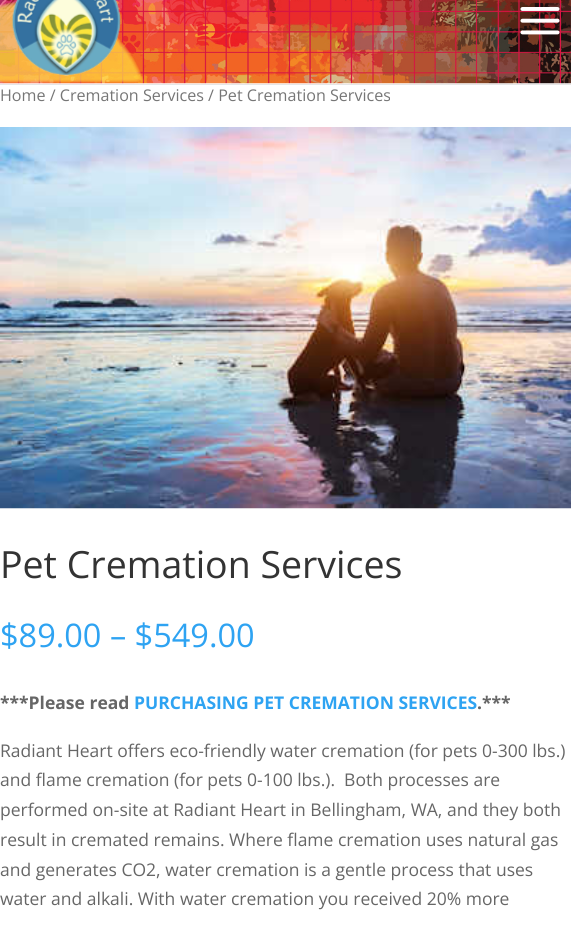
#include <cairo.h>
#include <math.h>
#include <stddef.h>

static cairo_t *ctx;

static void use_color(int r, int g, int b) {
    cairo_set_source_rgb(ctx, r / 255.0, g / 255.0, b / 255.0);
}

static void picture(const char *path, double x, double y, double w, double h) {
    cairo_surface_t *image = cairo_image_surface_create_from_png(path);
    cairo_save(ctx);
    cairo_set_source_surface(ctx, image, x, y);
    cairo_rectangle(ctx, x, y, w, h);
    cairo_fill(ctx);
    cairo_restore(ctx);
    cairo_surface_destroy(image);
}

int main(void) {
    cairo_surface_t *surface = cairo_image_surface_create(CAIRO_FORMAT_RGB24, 571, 928);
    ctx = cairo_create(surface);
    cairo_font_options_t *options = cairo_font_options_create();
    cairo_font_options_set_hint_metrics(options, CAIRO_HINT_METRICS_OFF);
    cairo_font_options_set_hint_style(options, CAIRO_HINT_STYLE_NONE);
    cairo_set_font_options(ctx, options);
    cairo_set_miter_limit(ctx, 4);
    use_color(255, 255, 255);
    cairo_paint(ctx);
    use_color(230, 230, 230);
    cairo_rectangle(ctx, 0, 84, 571, 1);
    cairo_fill(ctx);
    picture("img1.png", 0, 0, 571, 84);
    picture("img2.png", 11, 0, 110, 76);
    picture("img3.png", 520, 7, 40, 28);
    cairo_select_font_face(ctx, "Open Sans", CAIRO_FONT_SLANT_NORMAL, CAIRO_FONT_WEIGHT_NORMAL);
    cairo_set_font_size(ctx, 16.1);
    use_color(118, 118, 118);
    cairo_move_to(ctx, 0, 101);
    cairo_show_text(ctx, "Home / Cremation Services / Pet Cremation Services");
    picture("img4.png", 0, 127, 571, 382);
    cairo_set_font_size(ctx, 37.5);
    use_color(51, 51, 51);
    cairo_move_to(ctx, 0, 578);
    cairo_show_text(ctx, "Pet Cremation Services");
    cairo_set_font_size(ctx, 32.5);
    use_color(46, 163, 242);
    cairo_move_to(ctx, 0, 647);
    cairo_show_text(ctx, "$89.00 – $549.00");
    cairo_select_font_face(ctx, "Open Sans", CAIRO_FONT_SLANT_NORMAL, CAIRO_FONT_WEIGHT_BOLD);
    cairo_set_font_size(ctx, 17.5);
    use_color(102, 102, 102);
    cairo_move_to(ctx, 0, 709);
    cairo_show_text(ctx, "***Please read");
    use_color(46, 163, 242);
    cairo_move_to(ctx, 134, 709);
    cairo_show_text(ctx, "PURCHASING PET CREMATION SERVICES");
    use_color(102, 102, 102);
    cairo_move_to(ctx, 477, 709);
    cairo_show_text(ctx, ".***");
    cairo_select_font_face(ctx, "Open Sans", CAIRO_FONT_SLANT_NORMAL, CAIRO_FONT_WEIGHT_NORMAL);
    cairo_move_to(ctx, 0, 757);
    cairo_show_text(ctx, "Radiant Heart offers eco-friendly water cremation (for pets 0-300 lbs.)");
    cairo_move_to(ctx, 0, 786);
    cairo_show_text(ctx, "and flame cremation (for pets 0-100 lbs.).  Both processes are");
    cairo_move_to(ctx, 0, 816);
    cairo_show_text(ctx, "performed on-site at Radiant Heart in Bellingham, WA, and they both");
    cairo_move_to(ctx, 0, 846);
    cairo_show_text(ctx, "result in cremated remains. Where flame cremation uses natural gas");
    cairo_move_to(ctx, 0, 876);
    cairo_show_text(ctx, "and generates CO2, water cremation is a gentle process that uses");
    cairo_move_to(ctx, 0, 905);
    cairo_show_text(ctx, "water and alkali. With water cremation you received 20% more");
    cairo_surface_write_to_png(surface, "result.png");
    cairo_font_options_destroy(options);
    cairo_destroy(ctx);
    cairo_surface_destroy(surface);
    return 0;
}
